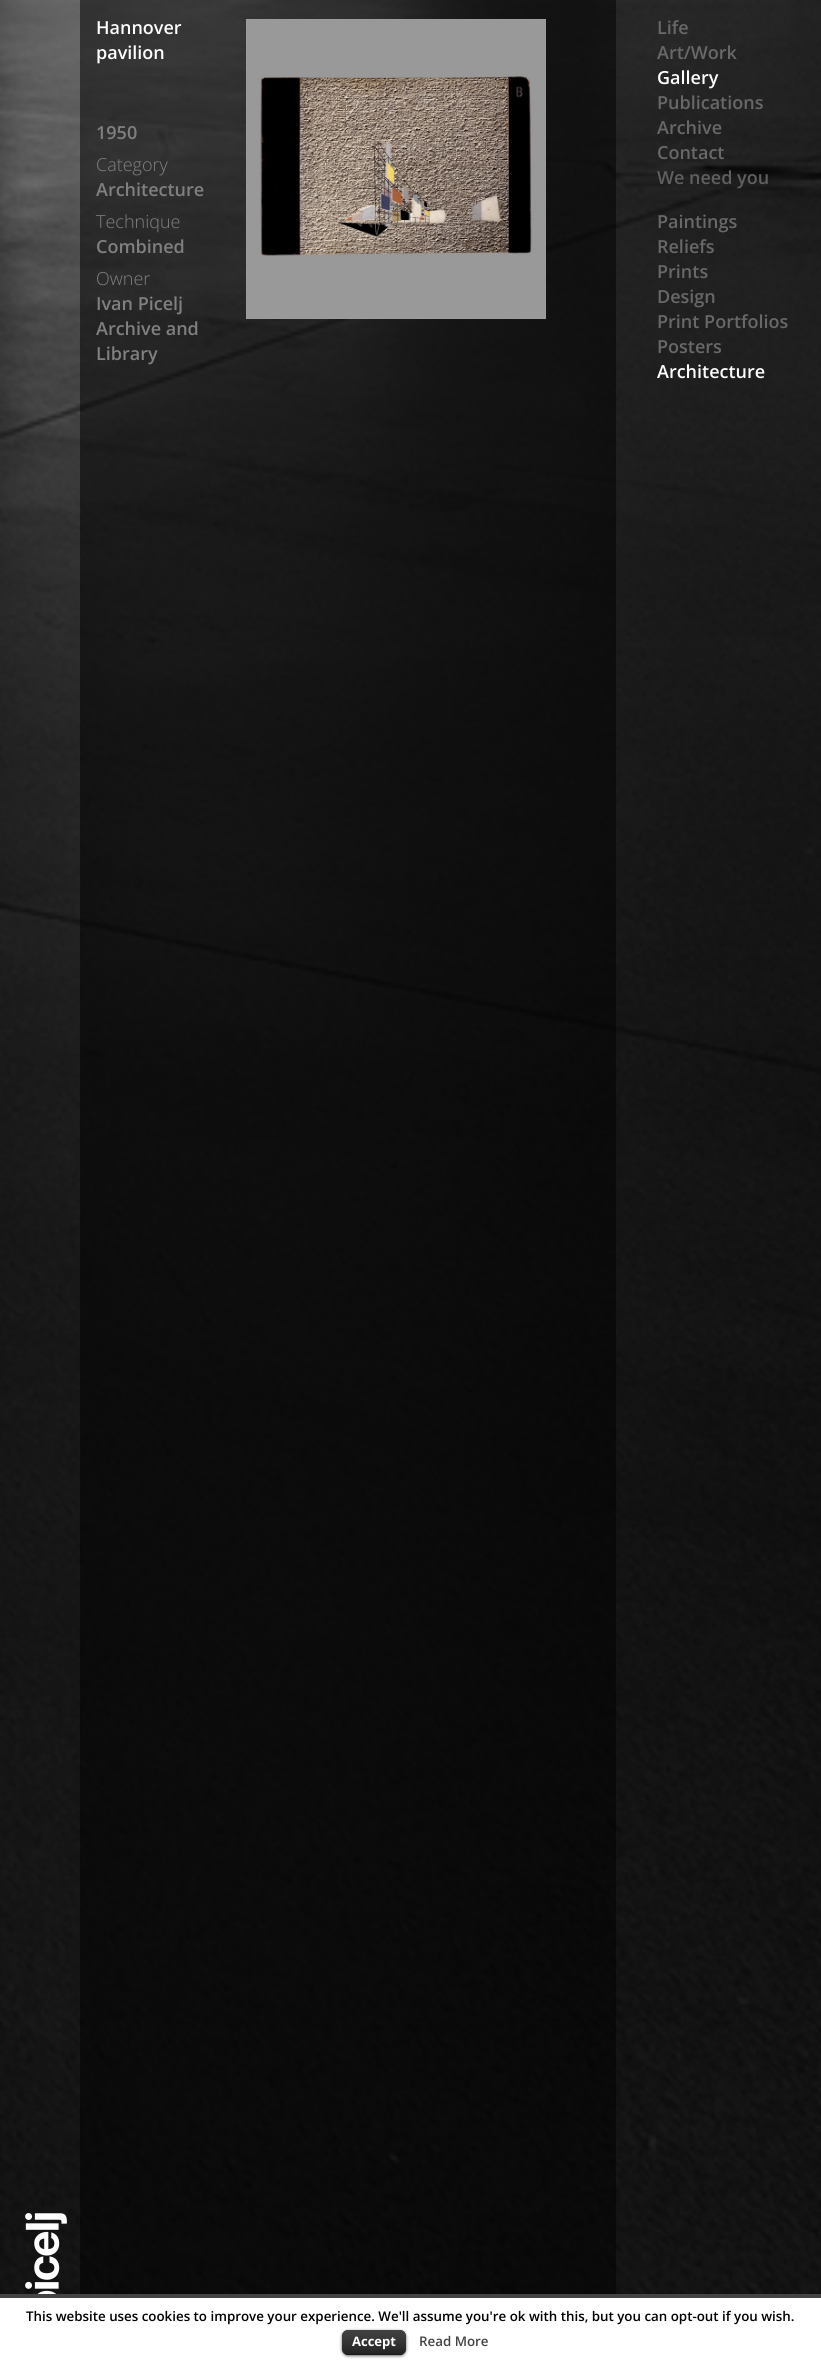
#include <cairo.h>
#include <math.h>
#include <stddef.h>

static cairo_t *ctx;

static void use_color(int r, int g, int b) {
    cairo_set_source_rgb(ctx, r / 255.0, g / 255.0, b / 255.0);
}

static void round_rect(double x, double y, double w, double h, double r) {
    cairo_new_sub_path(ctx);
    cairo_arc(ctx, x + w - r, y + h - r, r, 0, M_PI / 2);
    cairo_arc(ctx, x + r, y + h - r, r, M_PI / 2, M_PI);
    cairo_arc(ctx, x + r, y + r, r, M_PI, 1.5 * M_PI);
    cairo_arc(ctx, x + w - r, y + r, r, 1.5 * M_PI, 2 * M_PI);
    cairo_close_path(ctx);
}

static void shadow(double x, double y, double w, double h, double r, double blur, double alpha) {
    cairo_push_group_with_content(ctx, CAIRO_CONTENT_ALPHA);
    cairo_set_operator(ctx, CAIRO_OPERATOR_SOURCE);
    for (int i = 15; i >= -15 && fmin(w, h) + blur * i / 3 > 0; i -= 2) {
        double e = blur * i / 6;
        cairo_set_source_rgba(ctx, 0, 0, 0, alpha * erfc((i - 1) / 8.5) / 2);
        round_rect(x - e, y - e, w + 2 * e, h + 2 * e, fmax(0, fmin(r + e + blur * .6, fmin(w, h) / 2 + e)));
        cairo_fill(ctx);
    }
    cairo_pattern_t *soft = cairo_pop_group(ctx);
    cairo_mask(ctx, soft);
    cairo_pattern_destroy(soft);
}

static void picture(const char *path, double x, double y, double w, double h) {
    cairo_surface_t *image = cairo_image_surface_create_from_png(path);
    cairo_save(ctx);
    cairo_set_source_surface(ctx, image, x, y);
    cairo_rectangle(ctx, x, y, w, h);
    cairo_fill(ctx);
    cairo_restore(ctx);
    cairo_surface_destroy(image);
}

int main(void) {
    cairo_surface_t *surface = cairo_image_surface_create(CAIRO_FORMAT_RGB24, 821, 2360);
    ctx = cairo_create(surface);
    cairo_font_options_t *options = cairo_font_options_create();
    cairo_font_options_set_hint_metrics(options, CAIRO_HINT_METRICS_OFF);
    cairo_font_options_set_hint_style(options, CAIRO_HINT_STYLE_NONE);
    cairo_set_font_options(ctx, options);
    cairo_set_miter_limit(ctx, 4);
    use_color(255, 255, 255);
    cairo_paint(ctx);
    picture("img1.png", 0, 0, 821, 2294);
    cairo_set_source_rgba(ctx, 0, 0, 0, 0.5);
    cairo_rectangle(ctx, 80, 0, 536, 2294);
    cairo_fill(ctx);
    cairo_select_font_face(ctx, "Open Sans SemiBold", CAIRO_FONT_SLANT_NORMAL, CAIRO_FONT_WEIGHT_NORMAL);
    cairo_set_font_size(ctx, 18);
    use_color(255, 255, 255);
    cairo_move_to(ctx, 96, 34);
    cairo_show_text(ctx, "Hannover");
    cairo_move_to(ctx, 96, 59);
    cairo_show_text(ctx, "pavilion");
    picture("img2.png", 246, 19, 300, 300);
    use_color(128, 128, 128);
    cairo_move_to(ctx, 96, 139);
    cairo_show_text(ctx, "1950");
    cairo_select_font_face(ctx, "Open Sans Light", CAIRO_FONT_SLANT_NORMAL, CAIRO_FONT_WEIGHT_NORMAL);
    cairo_move_to(ctx, 96, 171);
    cairo_show_text(ctx, "Category");
    cairo_select_font_face(ctx, "Open Sans SemiBold", CAIRO_FONT_SLANT_NORMAL, CAIRO_FONT_WEIGHT_NORMAL);
    cairo_move_to(ctx, 96, 196);
    cairo_show_text(ctx, "Architecture");
    cairo_select_font_face(ctx, "Open Sans Light", CAIRO_FONT_SLANT_NORMAL, CAIRO_FONT_WEIGHT_NORMAL);
    cairo_move_to(ctx, 96, 228);
    cairo_show_text(ctx, "Technique");
    cairo_select_font_face(ctx, "Open Sans SemiBold", CAIRO_FONT_SLANT_NORMAL, CAIRO_FONT_WEIGHT_NORMAL);
    cairo_move_to(ctx, 96, 253);
    cairo_show_text(ctx, "Combined");
    cairo_select_font_face(ctx, "Open Sans Light", CAIRO_FONT_SLANT_NORMAL, CAIRO_FONT_WEIGHT_NORMAL);
    cairo_move_to(ctx, 96, 285);
    cairo_show_text(ctx, "Owner");
    cairo_select_font_face(ctx, "Open Sans SemiBold", CAIRO_FONT_SLANT_NORMAL, CAIRO_FONT_WEIGHT_NORMAL);
    cairo_move_to(ctx, 96, 310);
    cairo_show_text(ctx, "Ivan Picelj");
    cairo_move_to(ctx, 96, 335);
    cairo_show_text(ctx, "Archive and");
    cairo_move_to(ctx, 96, 360);
    cairo_show_text(ctx, "Library");
    use_color(104, 104, 104);
    cairo_move_to(ctx, 657, 34);
    cairo_show_text(ctx, "Life");
    cairo_move_to(ctx, 657, 59);
    cairo_show_text(ctx, "Art/Work");
    use_color(255, 255, 255);
    cairo_move_to(ctx, 657, 84);
    cairo_show_text(ctx, "Gallery");
    use_color(104, 104, 104);
    cairo_move_to(ctx, 657, 228);
    cairo_show_text(ctx, "Paintings");
    cairo_move_to(ctx, 657, 253);
    cairo_show_text(ctx, "Reliefs");
    cairo_move_to(ctx, 657, 278);
    cairo_show_text(ctx, "Prints");
    cairo_move_to(ctx, 657, 303);
    cairo_show_text(ctx, "Design");
    cairo_move_to(ctx, 657, 328);
    cairo_show_text(ctx, "Print Portfolios");
    cairo_move_to(ctx, 657, 353);
    cairo_show_text(ctx, "Posters");
    use_color(255, 255, 255);
    cairo_move_to(ctx, 657, 378);
    cairo_show_text(ctx, "Architecture");
    use_color(104, 104, 104);
    cairo_move_to(ctx, 657, 109);
    cairo_show_text(ctx, "Publications");
    cairo_move_to(ctx, 657, 134);
    cairo_show_text(ctx, "Archive");
    cairo_move_to(ctx, 657, 159);
    cairo_show_text(ctx, "Contact");
    use_color(96, 96, 96);
    cairo_move_to(ctx, 657, 184);
    cairo_show_text(ctx, "We need you");
    picture("img3.png", 25, 2213, 42, 81);
    use_color(68, 68, 68);
    cairo_rectangle(ctx, 0, 2294, 821, 4);
    cairo_fill(ctx);
    cairo_set_font_size(ctx, 13.33);
    use_color(0, 0, 0);
    cairo_move_to(ctx, 26, 2321);
    cairo_show_text(ctx, "This website uses cookies to improve your experience. We'll assume you're ok with this, but you can opt-out if you wish.");
    use_color(0, 0, 0);
    shadow(342, 2331, 64, 25, 6, 1.5, 0.6);
    use_color(0, 0, 0);
    round_rect(342, 2330, 64, 25, 6);
    cairo_fill(ctx);
    picture("img4.png", 342, 2330, 64, 25);
    cairo_set_source_rgba(ctx, 0, 0, 0, 0.25);
    cairo_rectangle(ctx, 345, 2354, 58, 1);
    cairo_fill(ctx);
    cairo_select_font_face(ctx, "Open Sans", CAIRO_FONT_SLANT_NORMAL, CAIRO_FONT_WEIGHT_BOLD);
    cairo_set_font_size(ctx, 13);
    use_color(255, 255, 255);
    cairo_move_to(ctx, 352, 2346);
    cairo_show_text(ctx, "Accept");
    cairo_select_font_face(ctx, "Open Sans SemiBold", CAIRO_FONT_SLANT_NORMAL, CAIRO_FONT_WEIGHT_NORMAL);
    cairo_set_font_size(ctx, 13.33);
    use_color(68, 68, 68);
    cairo_move_to(ctx, 419, 2346);
    cairo_show_text(ctx, "Read More");
    cairo_surface_write_to_png(surface, "result.png");
    cairo_font_options_destroy(options);
    cairo_destroy(ctx);
    cairo_surface_destroy(surface);
    return 0;
}
